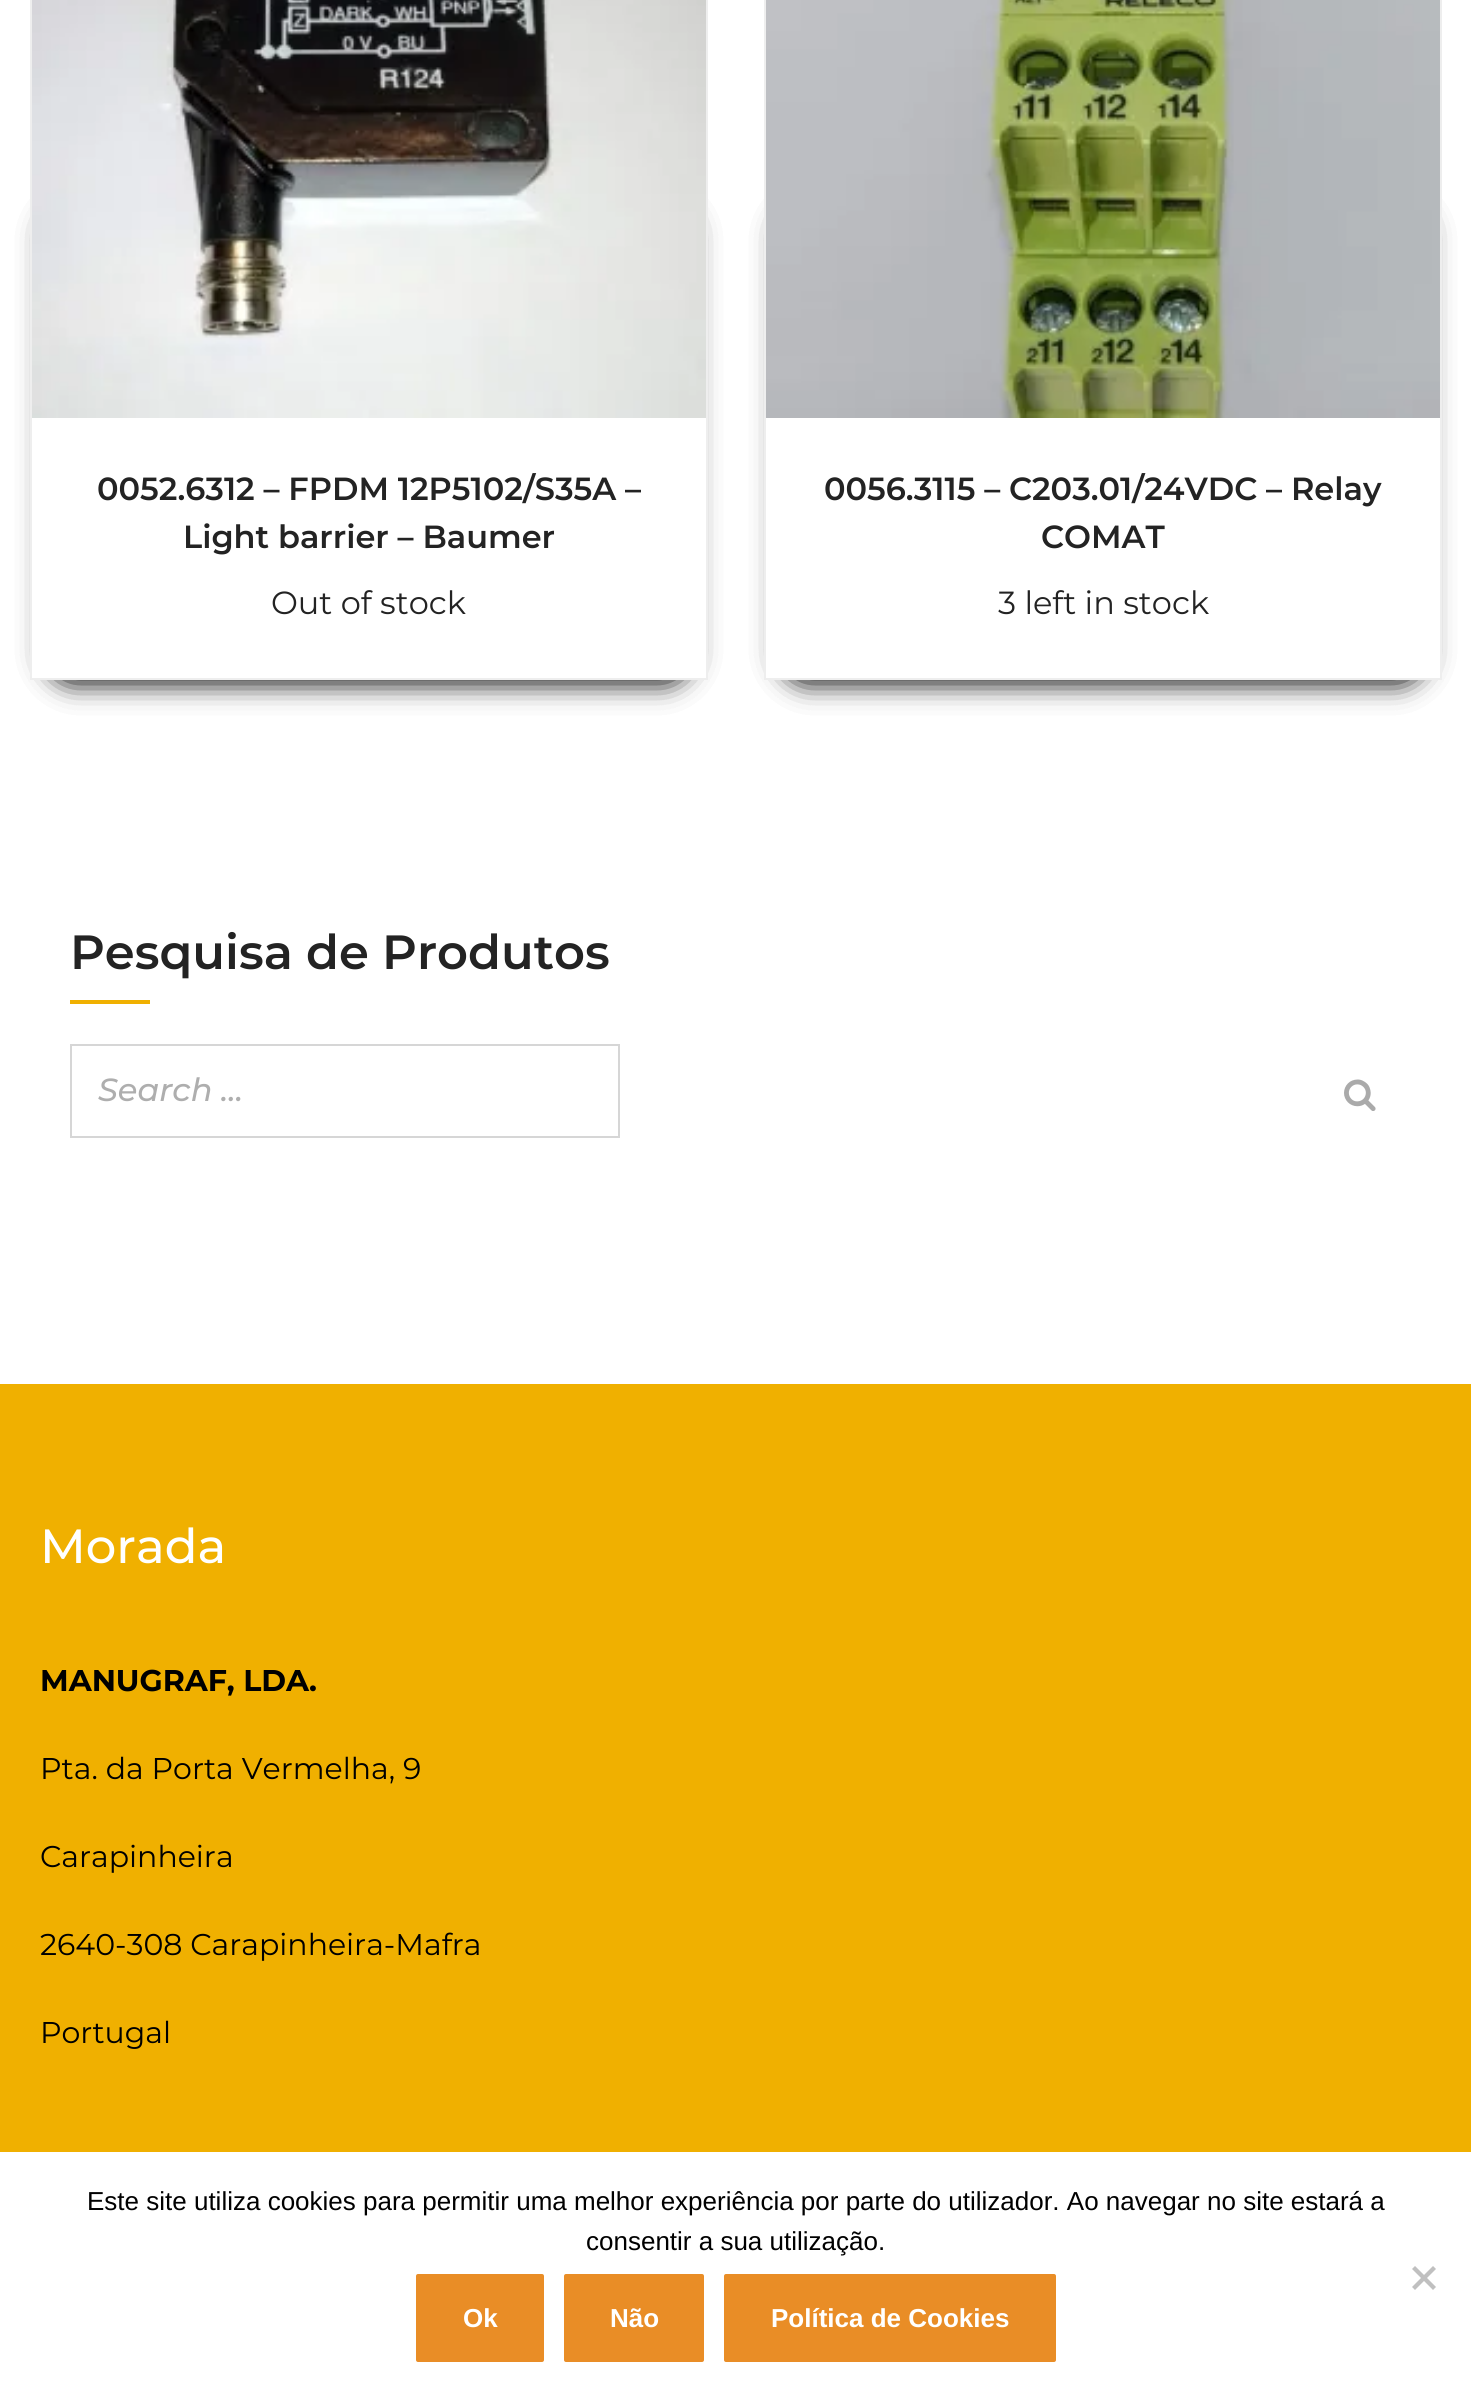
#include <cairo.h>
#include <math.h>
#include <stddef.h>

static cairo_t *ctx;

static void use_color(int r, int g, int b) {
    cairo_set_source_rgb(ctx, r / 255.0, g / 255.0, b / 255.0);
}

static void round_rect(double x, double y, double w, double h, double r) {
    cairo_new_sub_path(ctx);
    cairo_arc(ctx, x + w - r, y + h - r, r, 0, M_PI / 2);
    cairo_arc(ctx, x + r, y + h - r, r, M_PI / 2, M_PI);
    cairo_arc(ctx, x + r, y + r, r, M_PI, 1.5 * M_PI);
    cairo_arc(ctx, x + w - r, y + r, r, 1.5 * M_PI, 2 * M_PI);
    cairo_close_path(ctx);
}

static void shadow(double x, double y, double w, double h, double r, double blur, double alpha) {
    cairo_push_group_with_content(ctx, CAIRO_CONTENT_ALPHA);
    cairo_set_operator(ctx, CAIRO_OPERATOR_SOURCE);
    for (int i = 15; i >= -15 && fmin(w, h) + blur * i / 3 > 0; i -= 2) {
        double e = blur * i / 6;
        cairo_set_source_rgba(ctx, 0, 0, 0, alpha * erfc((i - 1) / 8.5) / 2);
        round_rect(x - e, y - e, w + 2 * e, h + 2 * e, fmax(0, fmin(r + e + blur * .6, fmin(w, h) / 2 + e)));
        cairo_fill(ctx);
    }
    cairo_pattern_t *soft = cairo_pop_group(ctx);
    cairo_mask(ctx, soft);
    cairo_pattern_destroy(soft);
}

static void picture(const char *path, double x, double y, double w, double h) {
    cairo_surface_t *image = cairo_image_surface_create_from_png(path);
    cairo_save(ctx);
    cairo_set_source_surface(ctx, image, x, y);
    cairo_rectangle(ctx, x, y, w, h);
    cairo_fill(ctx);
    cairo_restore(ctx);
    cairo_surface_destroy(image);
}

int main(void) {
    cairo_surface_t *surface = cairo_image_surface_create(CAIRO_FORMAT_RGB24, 1471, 2401);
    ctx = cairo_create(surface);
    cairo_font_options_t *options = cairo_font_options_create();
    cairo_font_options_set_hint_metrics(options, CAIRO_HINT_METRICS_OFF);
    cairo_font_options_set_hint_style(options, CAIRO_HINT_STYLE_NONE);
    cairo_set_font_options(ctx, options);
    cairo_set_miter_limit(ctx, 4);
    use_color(255, 255, 255);
    cairo_paint(ctx);
    use_color(0, 0, 0);
    shadow(52, 212, 634, 466, 20, 15, 0.8);
    shadow(52, 212, 634, 466, 20, 15, 0.8);
    use_color(255, 255, 255);
    cairo_rectangle(ctx, 32, 418, 674, 260);
    cairo_fill(ctx);
    cairo_rectangle(ctx, 31, -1, 676, 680);
    use_color(238, 238, 238);
    cairo_stroke(ctx);
    picture("img1.png", 32, 0, 674, 418);
    cairo_select_font_face(ctx, "Montserrat SemiBold", CAIRO_FONT_SLANT_NORMAL, CAIRO_FONT_WEIGHT_NORMAL);
    cairo_set_font_size(ctx, 32);
    use_color(35, 35, 35);
    cairo_move_to(ctx, 97, 500);
    cairo_show_text(ctx, "0052.6312 – FPDM 12P5102/S35A –");
    cairo_move_to(ctx, 183, 548);
    cairo_show_text(ctx, "Light barrier – Baumer");
    cairo_select_font_face(ctx, "Montserrat", CAIRO_FONT_SLANT_NORMAL, CAIRO_FONT_WEIGHT_NORMAL);
    cairo_move_to(ctx, 271, 614);
    cairo_show_text(ctx, "Out of stock");
    use_color(0, 0, 0);
    shadow(786, 212, 634, 466, 20, 15, 0.8);
    shadow(786, 212, 634, 466, 20, 15, 0.8);
    use_color(255, 255, 255);
    cairo_rectangle(ctx, 766, 418, 674, 260);
    cairo_fill(ctx);
    cairo_rectangle(ctx, 765, -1, 676, 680);
    use_color(238, 238, 238);
    cairo_stroke(ctx);
    picture("img2.png", 766, 0, 674, 418);
    cairo_select_font_face(ctx, "Montserrat SemiBold", CAIRO_FONT_SLANT_NORMAL, CAIRO_FONT_WEIGHT_NORMAL);
    use_color(35, 35, 35);
    cairo_move_to(ctx, 824, 500);
    cairo_show_text(ctx, "0056.3115 – C203.01/24VDC – Relay");
    cairo_move_to(ctx, 1041, 548);
    cairo_show_text(ctx, "COMAT");
    cairo_select_font_face(ctx, "Montserrat", CAIRO_FONT_SLANT_NORMAL, CAIRO_FONT_WEIGHT_NORMAL);
    cairo_move_to(ctx, 998, 614);
    cairo_show_text(ctx, "3 left in stock");
    cairo_select_font_face(ctx, "Montserrat SemiBold", CAIRO_FONT_SLANT_NORMAL, CAIRO_FONT_WEIGHT_NORMAL);
    cairo_set_font_size(ctx, 48);
    cairo_move_to(ctx, 70, 969);
    cairo_show_text(ctx, "Pesquisa de Produtos");
    use_color(240, 176, 0);
    cairo_rectangle(ctx, 70, 1000, 80, 4);
    cairo_fill(ctx);
    cairo_rectangle(ctx, 71, 1045, 548, 92);
    use_color(214, 214, 214);
    cairo_stroke(ctx);
    cairo_select_font_face(ctx, "Montserrat Medium", CAIRO_FONT_SLANT_ITALIC, CAIRO_FONT_WEIGHT_NORMAL);
    cairo_set_font_size(ctx, 32);
    use_color(174, 174, 174);
    cairo_move_to(ctx, 98, 1101);
    cairo_show_text(ctx, "Search …");
    picture("img3.png", 1344, 1079, 32, 32);
    use_color(240, 176, 0);
    cairo_rectangle(ctx, 0, 1384, 1471, 768);
    cairo_fill(ctx);
    cairo_select_font_face(ctx, "Montserrat Medium", CAIRO_FONT_SLANT_NORMAL, CAIRO_FONT_WEIGHT_NORMAL);
    cairo_set_font_size(ctx, 48);
    use_color(255, 255, 255);
    cairo_move_to(ctx, 40, 1563);
    cairo_show_text(ctx, "Morada");
    cairo_select_font_face(ctx, "Montserrat", CAIRO_FONT_SLANT_NORMAL, CAIRO_FONT_WEIGHT_BOLD);
    cairo_set_font_size(ctx, 30);
    use_color(0, 0, 0);
    cairo_move_to(ctx, 40, 1691);
    cairo_show_text(ctx, "MANUGRAF, LDA.");
    cairo_select_font_face(ctx, "Montserrat", CAIRO_FONT_SLANT_NORMAL, CAIRO_FONT_WEIGHT_NORMAL);
    cairo_move_to(ctx, 40, 1779);
    cairo_show_text(ctx, "Pta. da Porta Vermelha, 9");
    cairo_move_to(ctx, 40, 1867);
    cairo_show_text(ctx, "Carapinheira");
    cairo_move_to(ctx, 40, 1955);
    cairo_show_text(ctx, "2640-308 Carapinheira-Mafra");
    cairo_move_to(ctx, 40, 2043);
    cairo_show_text(ctx, "Portugal");
    cairo_select_font_face(ctx, "Liberation Sans", CAIRO_FONT_SLANT_NORMAL, CAIRO_FONT_WEIGHT_NORMAL);
    cairo_set_font_size(ctx, 26);
    cairo_move_to(ctx, 87, 2210);
    cairo_show_text(ctx, "Este site utiliza cookies para permitir uma melhor experiência por parte do utilizador. Ao navegar no site estará a");
    cairo_move_to(ctx, 586, 2250);
    cairo_show_text(ctx, "consentir a sua utilização.");
    use_color(192, 192, 192);
    cairo_new_path(ctx);
    cairo_move_to(ctx, 1433, 2266);
    cairo_line_to(ctx, 1436, 2269);
    cairo_line_to(ctx, 1415, 2290);
    cairo_line_to(ctx, 1412, 2287);
    cairo_close_path(ctx);
    cairo_fill(ctx);
    cairo_new_path(ctx);
    cairo_move_to(ctx, 1412, 2269);
    cairo_line_to(ctx, 1415, 2266);
    cairo_line_to(ctx, 1436, 2287);
    cairo_line_to(ctx, 1433, 2290);
    cairo_close_path(ctx);
    cairo_fill(ctx);
    use_color(233, 141, 38);
    round_rect(416, 2274, 128, 88, 2);
    cairo_fill(ctx);
    cairo_select_font_face(ctx, "Liberation Sans", CAIRO_FONT_SLANT_NORMAL, CAIRO_FONT_WEIGHT_BOLD);
    use_color(255, 255, 255);
    cairo_move_to(ctx, 463, 2327);
    cairo_show_text(ctx, "Ok");
    use_color(233, 141, 38);
    round_rect(564, 2274, 140, 88, 2);
    cairo_fill(ctx);
    use_color(255, 255, 255);
    cairo_move_to(ctx, 610, 2327);
    cairo_show_text(ctx, "Não");
    use_color(233, 141, 38);
    round_rect(724, 2274, 332, 88, 2);
    cairo_fill(ctx);
    use_color(255, 255, 255);
    cairo_move_to(ctx, 771, 2327);
    cairo_show_text(ctx, "Política de Cookies");
    cairo_surface_write_to_png(surface, "result.png");
    cairo_font_options_destroy(options);
    cairo_destroy(ctx);
    cairo_surface_destroy(surface);
    return 0;
}
